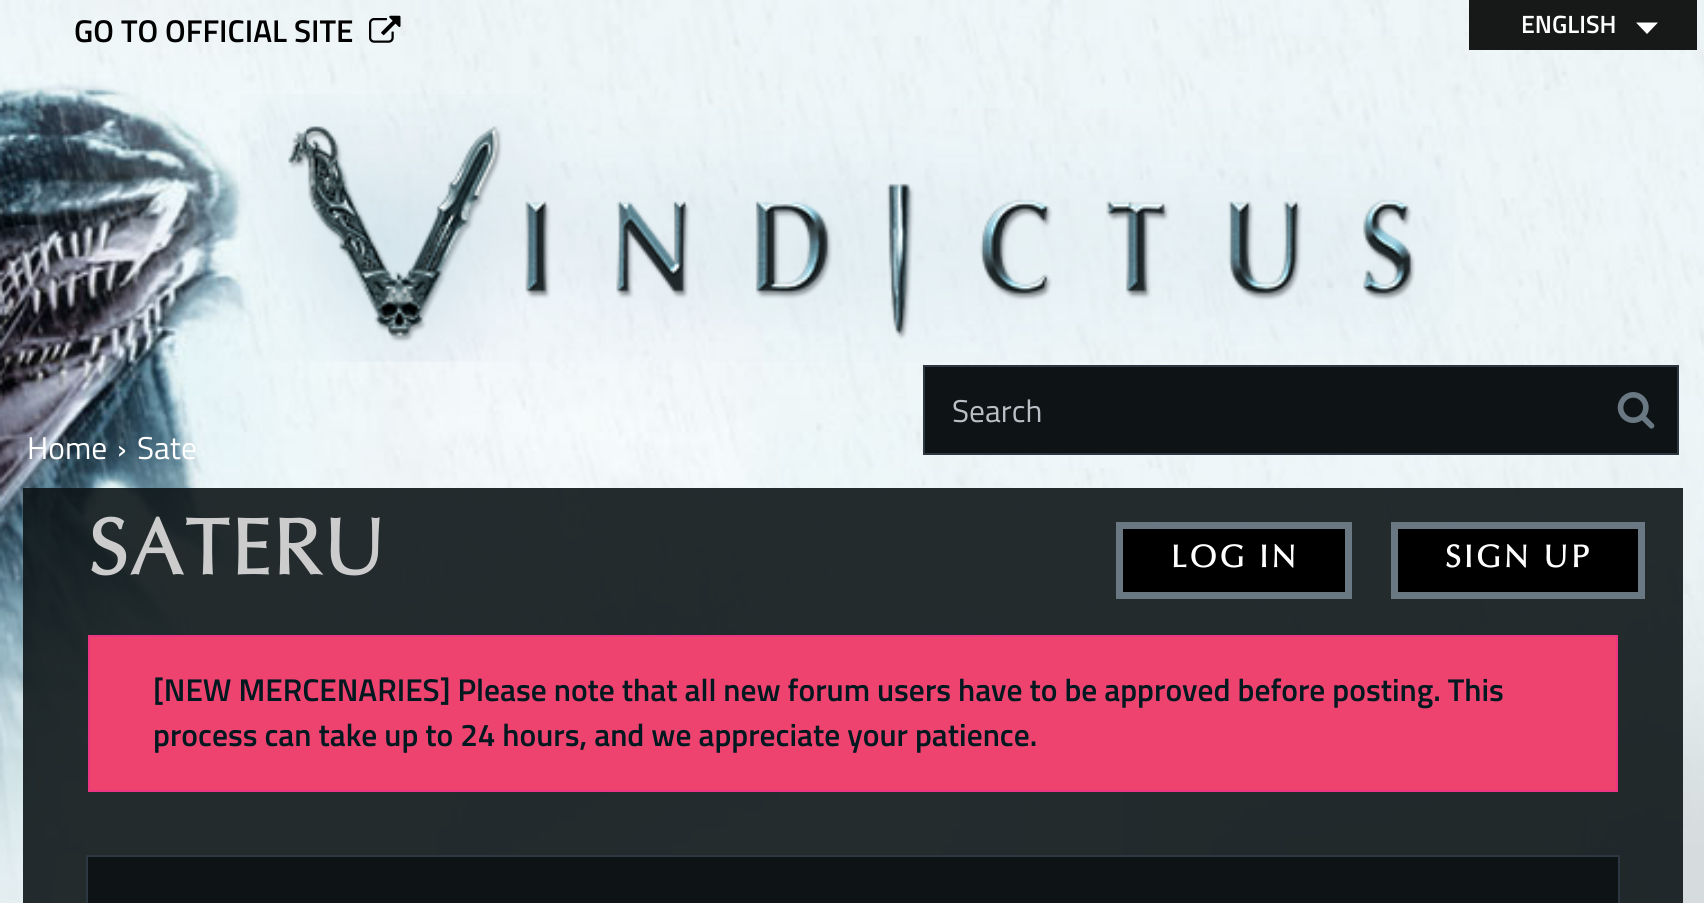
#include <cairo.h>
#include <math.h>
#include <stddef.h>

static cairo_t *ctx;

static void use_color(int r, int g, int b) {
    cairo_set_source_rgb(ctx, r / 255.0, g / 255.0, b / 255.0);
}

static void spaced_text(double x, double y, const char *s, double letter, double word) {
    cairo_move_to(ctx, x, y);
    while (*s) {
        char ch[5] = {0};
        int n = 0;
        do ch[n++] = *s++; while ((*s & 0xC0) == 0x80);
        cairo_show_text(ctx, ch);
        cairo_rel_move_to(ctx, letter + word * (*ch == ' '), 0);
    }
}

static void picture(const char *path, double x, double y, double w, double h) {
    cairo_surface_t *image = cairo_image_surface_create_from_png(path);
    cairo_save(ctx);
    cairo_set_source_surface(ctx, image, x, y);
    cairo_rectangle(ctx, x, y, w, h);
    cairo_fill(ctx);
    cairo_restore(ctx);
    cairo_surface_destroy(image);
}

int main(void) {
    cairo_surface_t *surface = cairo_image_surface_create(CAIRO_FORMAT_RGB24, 1704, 903);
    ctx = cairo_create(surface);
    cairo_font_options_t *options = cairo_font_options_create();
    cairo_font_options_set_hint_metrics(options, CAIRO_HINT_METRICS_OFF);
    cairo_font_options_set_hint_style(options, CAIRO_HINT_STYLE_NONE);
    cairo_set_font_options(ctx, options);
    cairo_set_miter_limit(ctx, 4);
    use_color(255, 255, 255);
    cairo_paint(ctx);
    picture("img1.png", 0, 0, 1704, 903);
    cairo_select_font_face(ctx, "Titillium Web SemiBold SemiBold", CAIRO_FONT_SLANT_NORMAL, CAIRO_FONT_WEIGHT_NORMAL);
    cairo_set_font_size(ctx, 31.5);
    use_color(0, 0, 0);
    cairo_move_to(ctx, 74, 42);
    cairo_show_text(ctx, "GO TO OFFICIAL SITE");
    picture("img2.png", 369, 15, 32, 28);
    cairo_set_source_rgba(ctx, 0, 0, 0, 0.9);
    cairo_rectangle(ctx, 1469, 0, 228, 50);
    cairo_fill(ctx);
    cairo_set_font_size(ctx, 25);
    use_color(255, 255, 255);
    cairo_move_to(ctx, 1521, 33);
    cairo_show_text(ctx, "ENGLISH");
    cairo_new_path(ctx);
    cairo_move_to(ctx, 1636, 22.5);
    cairo_line_to(ctx, 1658, 22.5);
    cairo_line_to(ctx, 1647, 34);
    cairo_close_path(ctx);
    cairo_fill(ctx);
    picture("img3.png", 240, 94, 1215, 268);
    use_color(14, 20, 22);
    cairo_rectangle(ctx, 924, 366, 754, 88);
    cairo_fill_preserve(ctx);
    use_color(44, 55, 65);
    cairo_stroke(ctx);
    cairo_select_font_face(ctx, "Titillium Web", CAIRO_FONT_SLANT_NORMAL, CAIRO_FONT_WEIGHT_NORMAL);
    cairo_set_font_size(ctx, 31.5);
    use_color(184, 191, 197);
    cairo_move_to(ctx, 952, 422);
    cairo_show_text(ctx, "Search");
    picture("img4.png", 1617, 392, 38, 37);
    use_color(255, 255, 255);
    cairo_move_to(ctx, 27, 459);
    cairo_show_text(ctx, "Home");
    cairo_move_to(ctx, 117, 459);
    cairo_show_text(ctx, "›");
    cairo_move_to(ctx, 137, 459);
    cairo_show_text(ctx, "Sate");
    cairo_set_source_rgba(ctx, 0.055, 0.086, 0.094, 0.9);
    cairo_rectangle(ctx, 23, 488, 1660, 415);
    cairo_fill(ctx);
    cairo_select_font_face(ctx, "Optima", CAIRO_FONT_SLANT_NORMAL, CAIRO_FONT_WEIGHT_BOLD);
    cairo_set_font_size(ctx, 79);
    use_color(204, 204, 204);
    spaced_text(88, 574, "SATERU", 2.25, 0);
    use_color(239, 67, 111);
    cairo_rectangle(ctx, 89, 636, 1528, 155);
    cairo_fill_preserve(ctx);
    use_color(238, 53, 131);
    cairo_stroke(ctx);
    cairo_select_font_face(ctx, "Titillium Web SemiBold SemiBold", CAIRO_FONT_SLANT_NORMAL, CAIRO_FONT_WEIGHT_NORMAL);
    cairo_set_font_size(ctx, 31.5);
    use_color(0, 24, 31);
    cairo_move_to(ctx, 153, 701);
    cairo_show_text(ctx, "[NEW MERCENARIES] Please note that all new forum users have to be approved before posting. This");
    cairo_move_to(ctx, 153, 746);
    cairo_show_text(ctx, "process can take up to 24 hours, and we appreciate your patience.");
    use_color(14, 20, 22);
    cairo_rectangle(ctx, 87, 856, 1532, 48);
    cairo_fill_preserve(ctx);
    use_color(44, 55, 65);
    cairo_stroke(ctx);
    use_color(0, 0, 0);
    cairo_rectangle(ctx, 1119.5, 525.5, 229, 70);
    cairo_fill_preserve(ctx);
    use_color(106, 120, 132);
    cairo_set_line_width(ctx, 7);
    cairo_stroke(ctx);
    cairo_select_font_face(ctx, "Optima", CAIRO_FONT_SLANT_NORMAL, CAIRO_FONT_WEIGHT_BOLD);
    use_color(255, 255, 255);
    spaced_text(1171, 567, "LOG IN", 3.25, 0);
    use_color(0, 0, 0);
    cairo_rectangle(ctx, 1394.5, 525.5, 247, 70);
    cairo_fill_preserve(ctx);
    use_color(106, 120, 132);
    cairo_stroke(ctx);
    use_color(255, 255, 255);
    spaced_text(1445, 567, "SIGN UP", 3.25, 0);
    cairo_surface_write_to_png(surface, "result.png");
    cairo_font_options_destroy(options);
    cairo_destroy(ctx);
    cairo_surface_destroy(surface);
    return 0;
}
